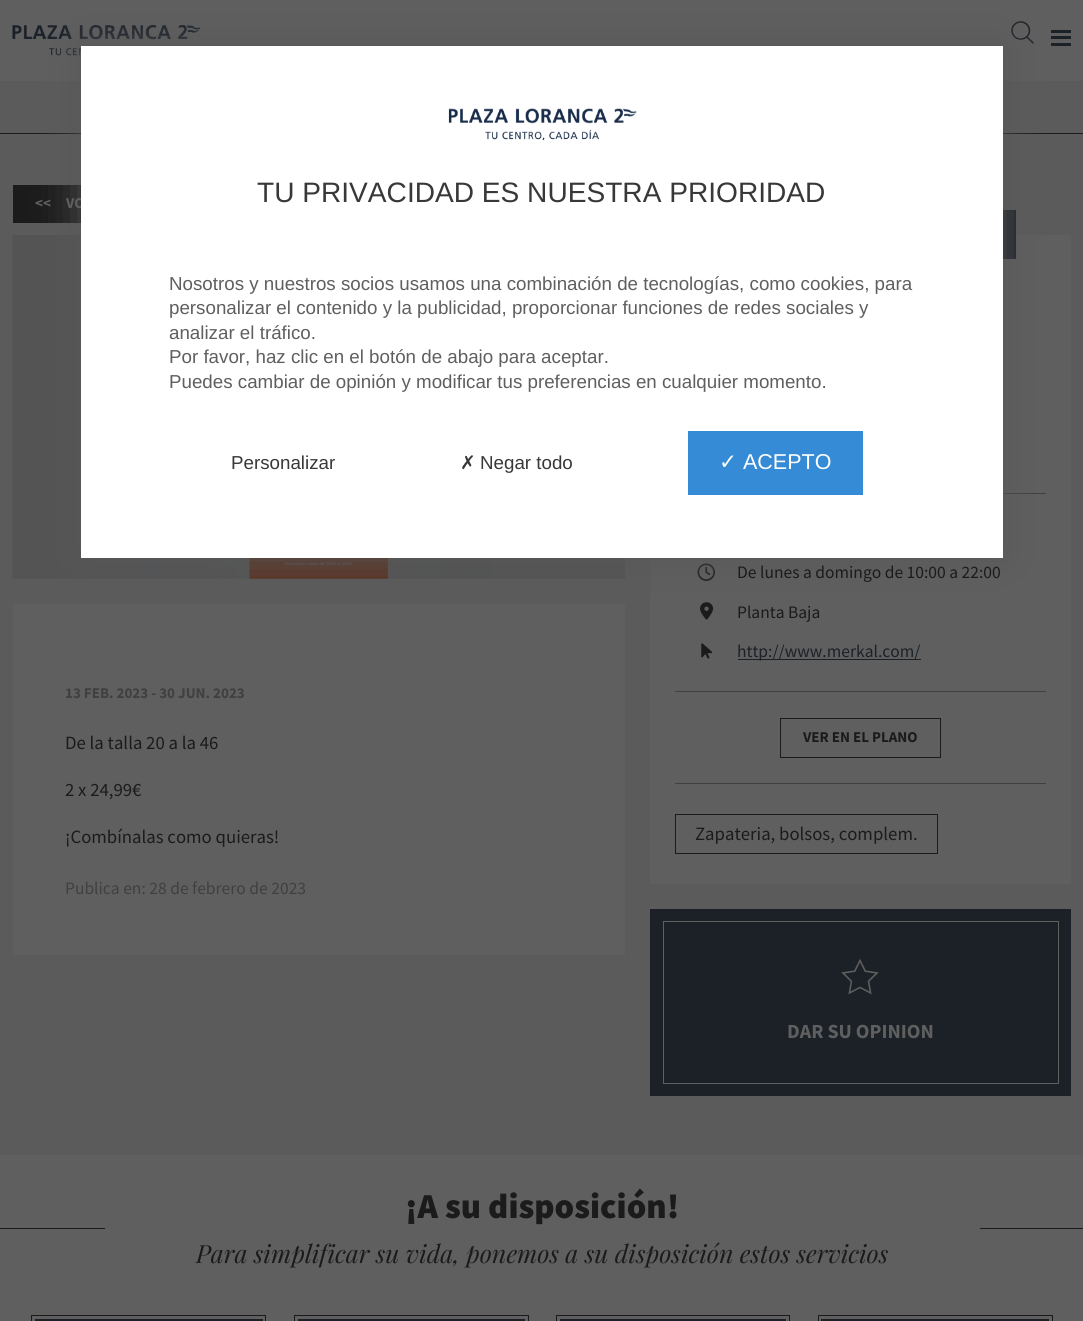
#include <cairo.h>
#include <math.h>
#include <stddef.h>

static cairo_t *ctx;

static void use_color(int r, int g, int b) {
    cairo_set_source_rgb(ctx, r / 255.0, g / 255.0, b / 255.0);
}

static void round_rect(double x, double y, double w, double h, double r) {
    cairo_new_sub_path(ctx);
    cairo_arc(ctx, x + w - r, y + h - r, r, 0, M_PI / 2);
    cairo_arc(ctx, x + r, y + h - r, r, M_PI / 2, M_PI);
    cairo_arc(ctx, x + r, y + r, r, M_PI, 1.5 * M_PI);
    cairo_arc(ctx, x + w - r, y + r, r, 1.5 * M_PI, 2 * M_PI);
    cairo_close_path(ctx);
}

static void shadow(double x, double y, double w, double h, double r, double blur, double alpha) {
    cairo_push_group_with_content(ctx, CAIRO_CONTENT_ALPHA);
    cairo_set_operator(ctx, CAIRO_OPERATOR_SOURCE);
    for (int i = 15; i >= -15 && fmin(w, h) + blur * i / 3 > 0; i -= 2) {
        double e = blur * i / 6;
        cairo_set_source_rgba(ctx, 0, 0, 0, alpha * erfc((i - 1) / 8.5) / 2);
        round_rect(x - e, y - e, w + 2 * e, h + 2 * e, fmax(0, fmin(r + e + blur * .6, fmin(w, h) / 2 + e)));
        cairo_fill(ctx);
    }
    cairo_pattern_t *soft = cairo_pop_group(ctx);
    cairo_mask(ctx, soft);
    cairo_pattern_destroy(soft);
}

static void picture(const char *path, double x, double y, double w, double h) {
    cairo_surface_t *image = cairo_image_surface_create_from_png(path);
    cairo_save(ctx);
    cairo_set_source_surface(ctx, image, x, y);
    cairo_rectangle(ctx, x, y, w, h);
    cairo_fill(ctx);
    cairo_restore(ctx);
    cairo_surface_destroy(image);
}

int main(void) {
    cairo_surface_t *surface = cairo_image_surface_create(CAIRO_FORMAT_RGB24, 1083, 1321);
    ctx = cairo_create(surface);
    cairo_font_options_t *options = cairo_font_options_create();
    cairo_font_options_set_hint_metrics(options, CAIRO_HINT_METRICS_OFF);
    cairo_font_options_set_hint_style(options, CAIRO_HINT_STYLE_NONE);
    cairo_set_font_options(ctx, options);
    cairo_set_miter_limit(ctx, 4);
    use_color(91, 91, 91);
    cairo_paint(ctx);
    use_color(95, 95, 95);
    cairo_rectangle(ctx, 0, 0, 1083, 81);
    cairo_fill(ctx);
    picture("img1.png", 12, 25, 188, 31);
    picture("img2.png", 1011, 21, 23, 23);
    use_color(28, 33, 39);
    cairo_rectangle(ctx, 1051, 36, 20, 3);
    cairo_fill(ctx);
    cairo_rectangle(ctx, 1051, 30, 20, 3);
    cairo_fill(ctx);
    cairo_rectangle(ctx, 1051, 43, 20, 3);
    cairo_fill(ctx);
    use_color(27, 27, 27);
    cairo_rectangle(ctx, 0, 133, 81, 1);
    cairo_fill(ctx);
    cairo_rectangle(ctx, 1003, 133, 80, 1);
    cairo_fill(ctx);
    cairo_rectangle(ctx, 13, 185, 68, 38);
    cairo_fill(ctx);
    picture("img4.png", 12, 235, 613, 344);
    use_color(95, 95, 95);
    cairo_rectangle(ctx, 13, 604, 612, 351);
    cairo_fill(ctx);
    cairo_rectangle(ctx, 650, 235, 421, 649);
    cairo_fill(ctx);
    use_color(28, 33, 39);
    cairo_rectangle(ctx, 1003, 210, 13, 49);
    cairo_fill(ctx);
    use_color(64, 64, 64);
    cairo_rectangle(ctx, 1003, 493, 43, 1);
    cairo_fill(ctx);
    picture("img5.png", 697, 563, 18, 18);
    picture("img6.png", 700, 602, 14, 18);
    use_color(87, 87, 87);
    shadow(81, 46, 922, 512, 0, 22, 1);
    cairo_select_font_face(ctx, "Source Sans Pro", CAIRO_FONT_SLANT_NORMAL, CAIRO_FONT_WEIGHT_BOLD);
    cairo_set_font_size(ctx, 15);
    use_color(95, 95, 95);
    cairo_move_to(ctx, 66, 208);
    cairo_show_text(ctx, "VO");
    use_color(255, 255, 255);
    cairo_rectangle(ctx, 81, 46, 922, 512);
    cairo_fill(ctx);
    picture("img3.png", 448, 108, 189, 32);
    cairo_select_font_face(ctx, "Liberation Sans", CAIRO_FONT_SLANT_NORMAL, CAIRO_FONT_WEIGHT_NORMAL);
    cairo_set_font_size(ctx, 28.1);
    use_color(56, 56, 56);
    cairo_move_to(ctx, 257, 202);
    cairo_show_text(ctx, "TU PRIVACIDAD ES NUESTRA PRIORIDAD");
    cairo_set_font_size(ctx, 18.75);
    use_color(95, 95, 95);
    cairo_move_to(ctx, 169, 290);
    cairo_show_text(ctx, "Nosotros y nuestros socios usamos una combinación de tecnologías, como cookies, para");
    cairo_move_to(ctx, 169, 314);
    cairo_show_text(ctx, "personalizar el contenido y la publicidad, proporcionar funciones de redes sociales y");
    cairo_move_to(ctx, 169, 339);
    cairo_show_text(ctx, "analizar el tráfico.");
    cairo_move_to(ctx, 169, 363);
    cairo_show_text(ctx, "Por favor, haz clic en el botón de abajo para aceptar.");
    cairo_move_to(ctx, 169, 388);
    cairo_show_text(ctx, "Puedes cambiar de opinión y modificar tus preferencias en cualquier momento.");
    use_color(56, 56, 56);
    cairo_move_to(ctx, 231, 469);
    cairo_show_text(ctx, "Personalizar");
    cairo_select_font_face(ctx, "DejaVu Sans", CAIRO_FONT_SLANT_NORMAL, CAIRO_FONT_WEIGHT_NORMAL);
    cairo_move_to(ctx, 460, 469);
    cairo_show_text(ctx, "✗");
    cairo_select_font_face(ctx, "Liberation Sans", CAIRO_FONT_SLANT_NORMAL, CAIRO_FONT_WEIGHT_NORMAL);
    cairo_move_to(ctx, 480, 469);
    cairo_show_text(ctx, "Negar todo");
    use_color(53, 139, 214);
    cairo_rectangle(ctx, 688, 431, 175, 64);
    cairo_fill(ctx);
    cairo_select_font_face(ctx, "DejaVu Sans", CAIRO_FONT_SLANT_NORMAL, CAIRO_FONT_WEIGHT_NORMAL);
    cairo_set_font_size(ctx, 21.5);
    use_color(255, 255, 255);
    cairo_move_to(ctx, 719, 469);
    cairo_show_text(ctx, "✓");
    cairo_select_font_face(ctx, "Liberation Sans", CAIRO_FONT_SLANT_NORMAL, CAIRO_FONT_WEIGHT_NORMAL);
    cairo_move_to(ctx, 743, 469);
    cairo_show_text(ctx, "ACEPTO");
    cairo_select_font_face(ctx, "Source Sans Pro", CAIRO_FONT_SLANT_NORMAL, CAIRO_FONT_WEIGHT_BOLD);
    cairo_set_font_size(ctx, 15);
    use_color(95, 95, 95);
    cairo_move_to(ctx, 35, 208);
    cairo_show_text(ctx, "<<");
    use_color(64, 64, 64);
    cairo_move_to(ctx, 65, 698);
    cairo_show_text(ctx, "13 FEB. 2023 - 30 JUN. 2023");
    cairo_select_font_face(ctx, "Source Sans Pro", CAIRO_FONT_SLANT_NORMAL, CAIRO_FONT_WEIGHT_NORMAL);
    cairo_set_font_size(ctx, 18.75);
    use_color(27, 27, 27);
    cairo_move_to(ctx, 65, 749);
    cairo_show_text(ctx, "De la talla 20 a la 46");
    cairo_move_to(ctx, 65, 796);
    cairo_show_text(ctx, "2 x 24,99€");
    cairo_move_to(ctx, 65, 843);
    cairo_show_text(ctx, "¡Combínalas como quieras!");
    cairo_set_font_size(ctx, 17.5);
    use_color(64, 64, 64);
    cairo_move_to(ctx, 65, 894);
    cairo_show_text(ctx, "Publica en: 28 de febrero de 2023");
    cairo_rectangle(ctx, 675, 691, 371, 1);
    cairo_fill(ctx);
    use_color(27, 27, 27);
    cairo_move_to(ctx, 737, 578);
    cairo_show_text(ctx, "De lunes a domingo de 10:00 a 22:00");
    cairo_move_to(ctx, 737, 618);
    cairo_show_text(ctx, "Planta Baja");
    picture("img7.png", 701, 643, 12, 16);
    use_color(28, 33, 39);
    cairo_rectangle(ctx, 738, 659, 183, 1);
    cairo_fill(ctx);
    cairo_move_to(ctx, 737, 657);
    cairo_show_text(ctx, "http://www.merkal.com/");
    cairo_rectangle(ctx, 780.5, 718.5, 160, 39);
    use_color(27, 27, 27);
    cairo_set_line_width(ctx, 1);
    cairo_stroke(ctx);
    cairo_select_font_face(ctx, "Source Sans Pro", CAIRO_FONT_SLANT_NORMAL, CAIRO_FONT_WEIGHT_BOLD);
    cairo_set_font_size(ctx, 15);
    cairo_move_to(ctx, 803, 742);
    cairo_show_text(ctx, "VER EN EL PLANO");
    use_color(64, 64, 64);
    cairo_rectangle(ctx, 675, 783, 371, 1);
    cairo_fill(ctx);
    cairo_rectangle(ctx, 675.5, 814.5, 262, 39);
    use_color(27, 27, 27);
    cairo_stroke(ctx);
    cairo_select_font_face(ctx, "Source Sans Pro", CAIRO_FONT_SLANT_NORMAL, CAIRO_FONT_WEIGHT_NORMAL);
    cairo_set_font_size(ctx, 18.75);
    cairo_move_to(ctx, 695, 840);
    cairo_show_text(ctx, "Zapateria, bolsos, complem.");
    use_color(28, 33, 39);
    cairo_rectangle(ctx, 650, 909, 421, 187);
    cairo_fill(ctx);
    picture("img8.png", 841, 959, 38, 36);
    cairo_rectangle(ctx, 663.5, 921.5, 395, 162);
    use_color(95, 95, 95);
    cairo_stroke(ctx);
    cairo_select_font_face(ctx, "Source Sans Pro", CAIRO_FONT_SLANT_NORMAL, CAIRO_FONT_WEIGHT_BOLD);
    cairo_set_font_size(ctx, 20);
    cairo_move_to(ctx, 787, 1038);
    cairo_show_text(ctx, "DAR SU OPINION");
    cairo_rectangle(ctx, 0, 1155, 1083, 166);
    cairo_fill(ctx);
    cairo_select_font_face(ctx, "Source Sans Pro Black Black", CAIRO_FONT_SLANT_NORMAL, CAIRO_FONT_WEIGHT_NORMAL);
    cairo_set_font_size(ctx, 35);
    use_color(27, 27, 27);
    cairo_move_to(ctx, 405, 1218);
    cairo_show_text(ctx, "¡A su disposición!");
    cairo_rectangle(ctx, 0, 1228, 105, 1);
    cairo_fill(ctx);
    cairo_rectangle(ctx, 980, 1228, 103, 1);
    cairo_fill(ctx);
    cairo_select_font_face(ctx, "Playfair Display", CAIRO_FONT_SLANT_ITALIC, CAIRO_FONT_WEIGHT_NORMAL);
    cairo_set_font_size(ctx, 25);
    cairo_move_to(ctx, 196, 1263);
    cairo_show_text(ctx, "Para simplificar su vida, ponemos a su disposición estos servicios");
    cairo_rectangle(ctx, 31.5, 1315.5, 234, 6);
    use_color(26, 26, 26);
    cairo_stroke(ctx);
    use_color(28, 33, 39);
    cairo_rectangle(ctx, 35, 1319, 228, 2);
    cairo_fill(ctx);
    cairo_rectangle(ctx, 294.5, 1315.5, 234, 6);
    use_color(26, 26, 26);
    cairo_stroke(ctx);
    use_color(28, 33, 39);
    cairo_rectangle(ctx, 298, 1319, 227, 2);
    cairo_fill(ctx);
    cairo_rectangle(ctx, 556.5, 1315.5, 233, 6);
    use_color(26, 26, 26);
    cairo_stroke(ctx);
    use_color(28, 33, 39);
    cairo_rectangle(ctx, 560, 1319, 226, 2);
    cairo_fill(ctx);
    cairo_rectangle(ctx, 818.5, 1315.5, 234, 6);
    use_color(26, 26, 26);
    cairo_stroke(ctx);
    use_color(28, 33, 39);
    cairo_rectangle(ctx, 821, 1319, 228, 2);
    cairo_fill(ctx);
    cairo_surface_write_to_png(surface, "result.png");
    cairo_font_options_destroy(options);
    cairo_destroy(ctx);
    cairo_surface_destroy(surface);
    return 0;
}
